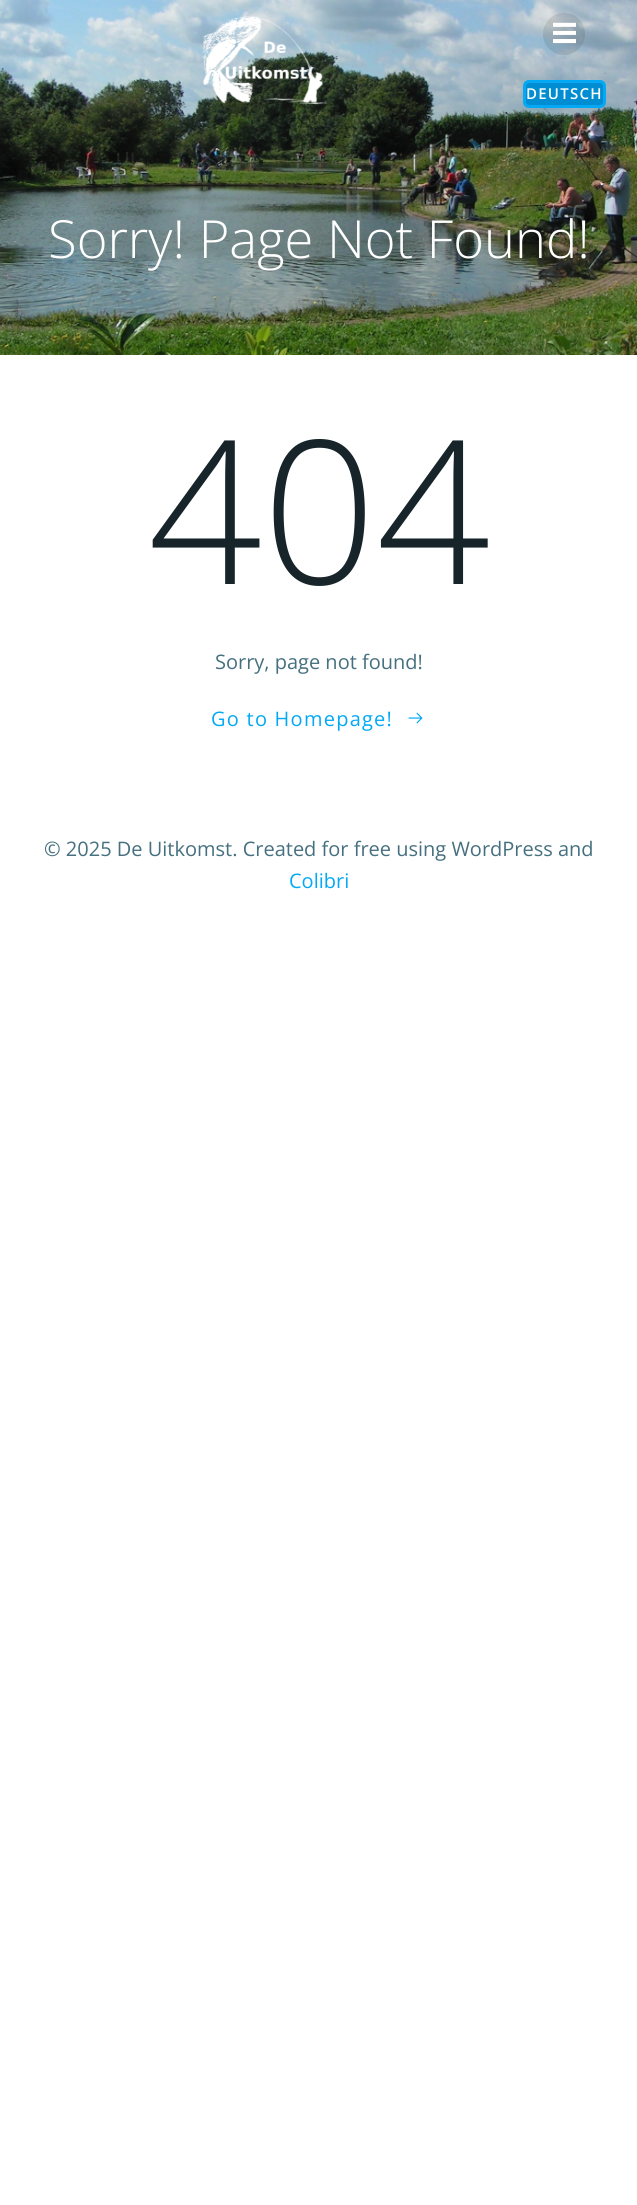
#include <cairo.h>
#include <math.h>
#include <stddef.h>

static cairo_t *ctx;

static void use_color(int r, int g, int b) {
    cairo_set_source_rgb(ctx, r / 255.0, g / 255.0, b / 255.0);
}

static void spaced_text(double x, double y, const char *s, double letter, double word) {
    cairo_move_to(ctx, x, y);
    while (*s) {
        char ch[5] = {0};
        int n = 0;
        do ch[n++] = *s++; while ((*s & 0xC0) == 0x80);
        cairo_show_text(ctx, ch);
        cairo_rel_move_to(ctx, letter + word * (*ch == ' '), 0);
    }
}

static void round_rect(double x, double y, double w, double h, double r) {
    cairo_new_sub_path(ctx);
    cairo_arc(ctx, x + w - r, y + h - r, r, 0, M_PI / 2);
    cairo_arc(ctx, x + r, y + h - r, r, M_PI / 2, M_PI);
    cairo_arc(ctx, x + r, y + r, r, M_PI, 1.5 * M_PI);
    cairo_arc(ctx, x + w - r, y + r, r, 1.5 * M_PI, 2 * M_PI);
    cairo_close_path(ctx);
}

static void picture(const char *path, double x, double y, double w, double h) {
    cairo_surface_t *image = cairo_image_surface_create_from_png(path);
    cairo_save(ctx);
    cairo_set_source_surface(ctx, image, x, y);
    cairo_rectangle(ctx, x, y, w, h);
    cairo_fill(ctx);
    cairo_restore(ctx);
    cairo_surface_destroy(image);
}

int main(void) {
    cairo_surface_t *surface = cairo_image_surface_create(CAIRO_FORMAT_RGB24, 637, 2205);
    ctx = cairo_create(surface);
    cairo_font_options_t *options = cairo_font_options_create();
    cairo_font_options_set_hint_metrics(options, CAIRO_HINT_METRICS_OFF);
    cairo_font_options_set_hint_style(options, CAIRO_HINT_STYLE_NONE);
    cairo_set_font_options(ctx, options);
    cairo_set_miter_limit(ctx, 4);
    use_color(255, 255, 255);
    cairo_paint(ctx);
    picture("img3.png", 0, 0, 637, 355);
    picture("img1.png", 202, 16, 125, 88);
    cairo_set_source_rgba(ctx, 0, 0, 0, 0.1);
    cairo_arc(ctx, 564, 34, 21, 0, 2 * M_PI);
    cairo_fill(ctx);
    picture("img2.png", 553, 22, 23, 22);
    use_color(1, 141, 210);
    round_rect(524.5, 81.5, 80, 25, 4.5);
    cairo_fill_preserve(ctx);
    use_color(3, 169, 244);
    cairo_set_line_width(ctx, 3);
    cairo_stroke(ctx);
    cairo_select_font_face(ctx, "Open Sans SemiBold", CAIRO_FONT_SLANT_NORMAL, CAIRO_FONT_WEIGHT_NORMAL);
    cairo_set_font_size(ctx, 15);
    use_color(255, 255, 255);
    spaced_text(526, 99, "DEUTSCH", 1.25, 0);
    cairo_select_font_face(ctx, "Open Sans Light", CAIRO_FONT_SLANT_NORMAL, CAIRO_FONT_WEIGHT_NORMAL);
    cairo_set_font_size(ctx, 52.5);
    cairo_move_to(ctx, 48, 258);
    cairo_show_text(ctx, "Sorry! Page Not Found!");
    cairo_set_font_size(ctx, 200);
    use_color(23, 37, 42);
    cairo_move_to(ctx, 148, 584);
    cairo_show_text(ctx, "404");
    cairo_select_font_face(ctx, "Open Sans", CAIRO_FONT_SLANT_NORMAL, CAIRO_FONT_WEIGHT_NORMAL);
    cairo_set_font_size(ctx, 20);
    use_color(70, 112, 127);
    cairo_move_to(ctx, 215, 669);
    cairo_show_text(ctx, "Sorry, page not found!");
    use_color(3, 169, 244);
    spaced_text(211, 726, "Go to Homepage!", 1.25, 0);
    picture("img4.png", 408, 712, 15, 12);
    use_color(70, 112, 127);
    cairo_move_to(ctx, 44, 856);
    cairo_show_text(ctx, "© 2025 De Uitkomst. Created for free using WordPress and");
    use_color(3, 169, 244);
    cairo_move_to(ctx, 289, 888);
    cairo_show_text(ctx, "Colibri");
    cairo_surface_write_to_png(surface, "result.png");
    cairo_font_options_destroy(options);
    cairo_destroy(ctx);
    cairo_surface_destroy(surface);
    return 0;
}
